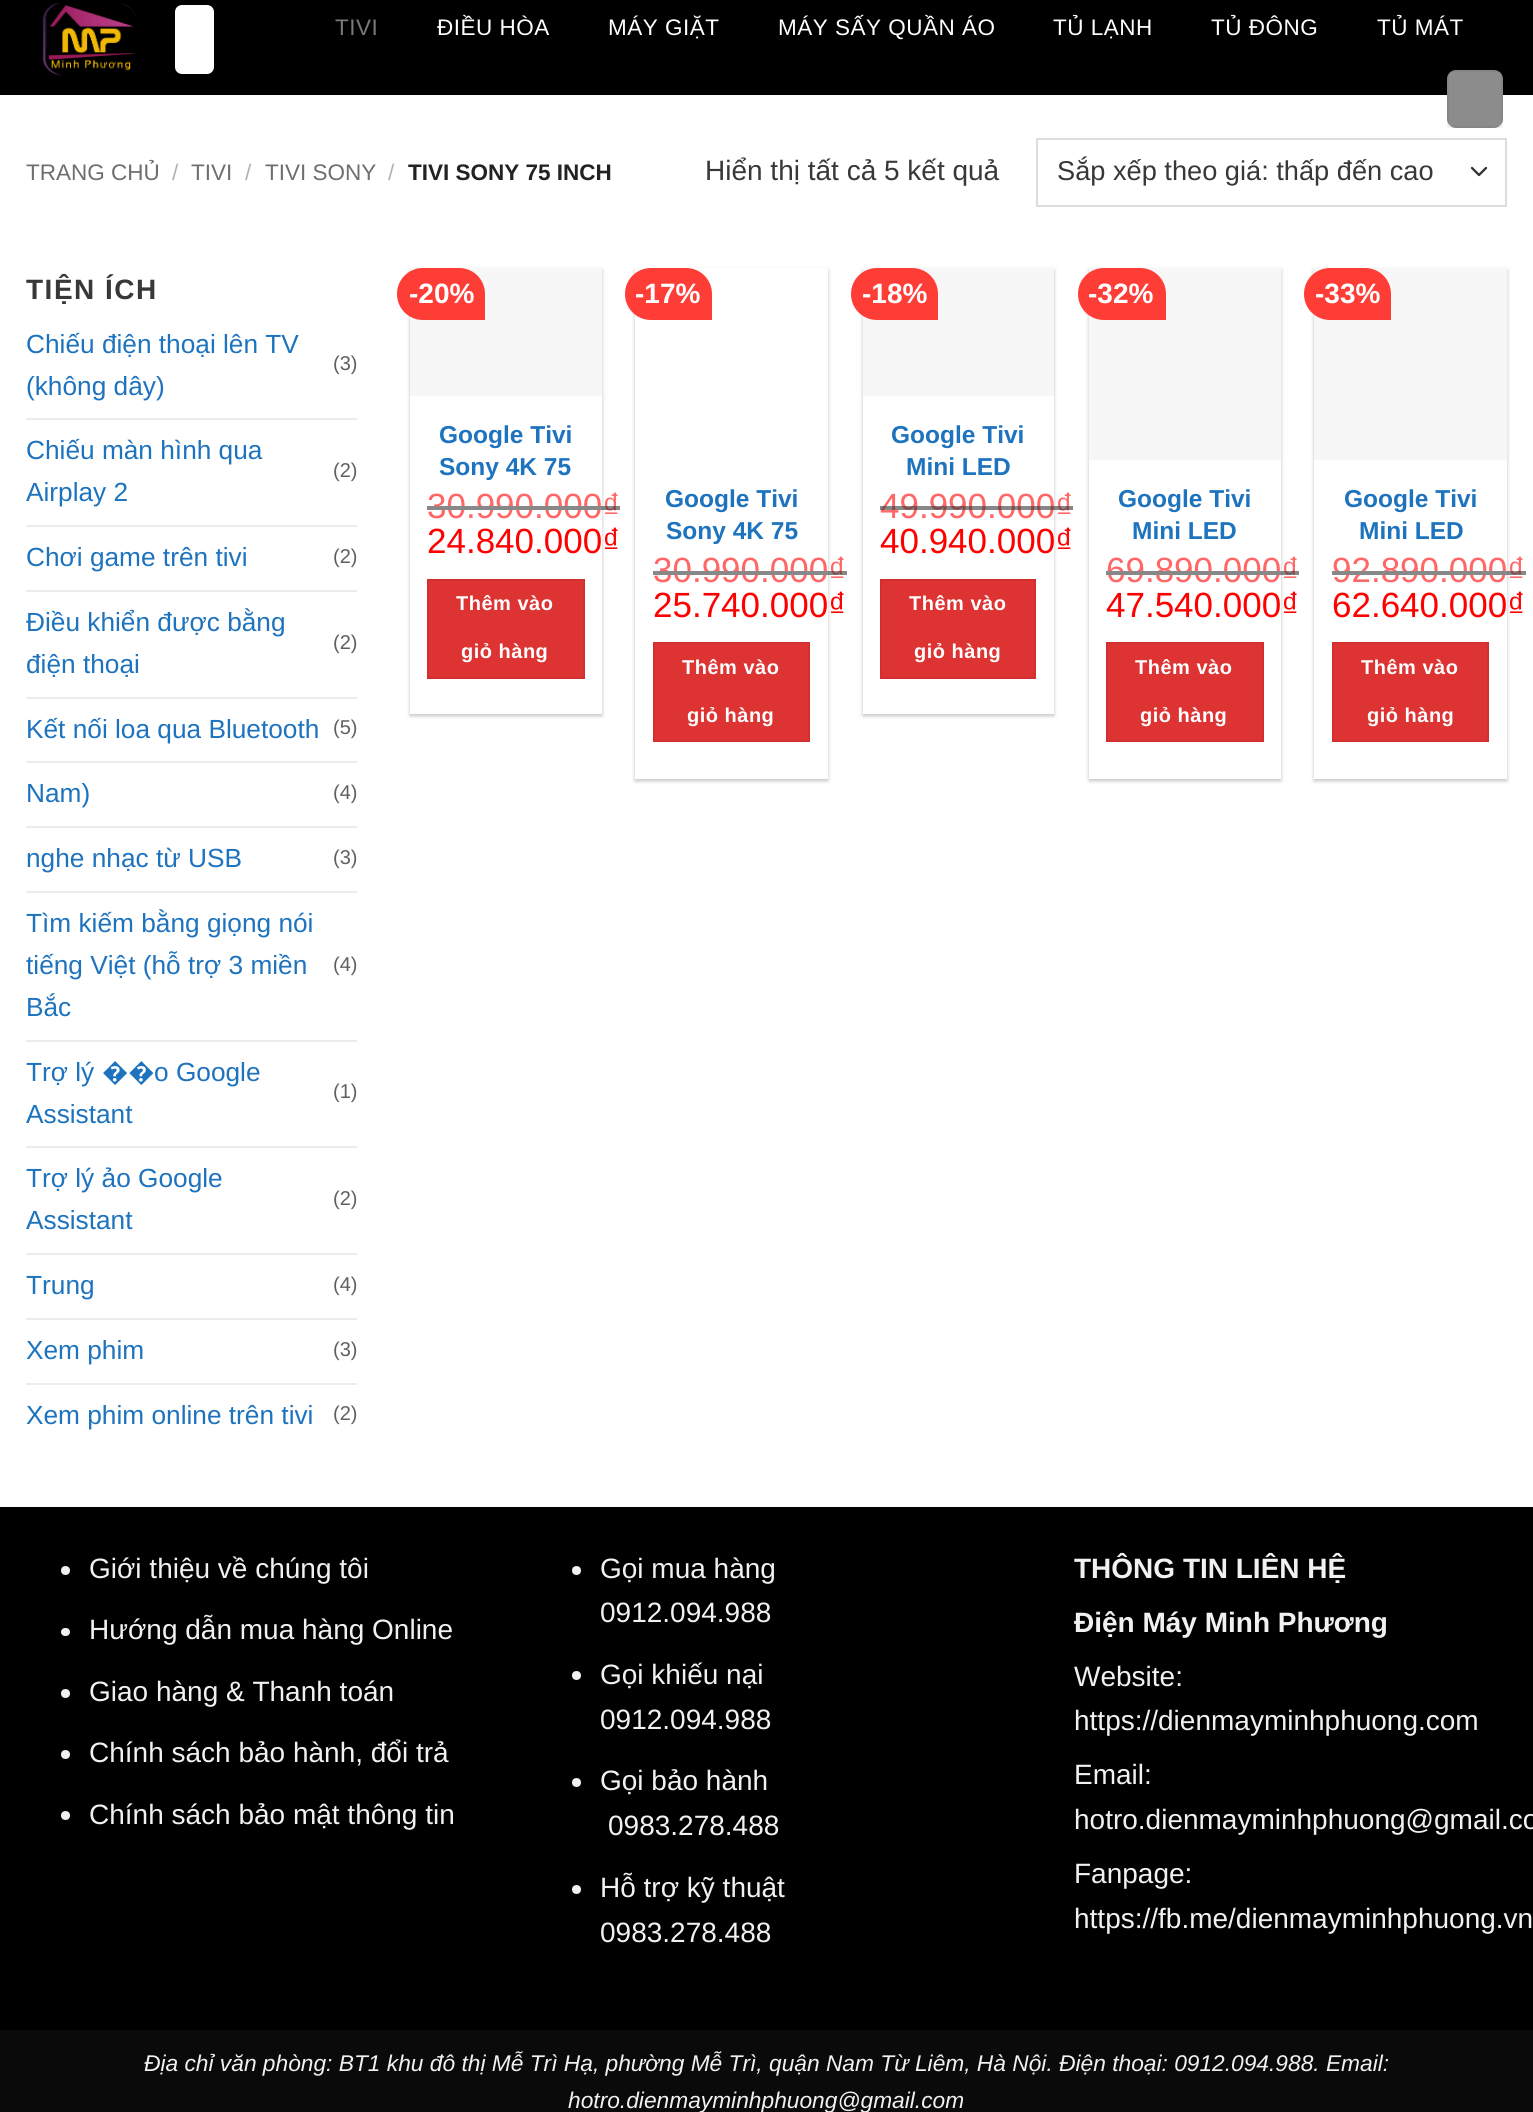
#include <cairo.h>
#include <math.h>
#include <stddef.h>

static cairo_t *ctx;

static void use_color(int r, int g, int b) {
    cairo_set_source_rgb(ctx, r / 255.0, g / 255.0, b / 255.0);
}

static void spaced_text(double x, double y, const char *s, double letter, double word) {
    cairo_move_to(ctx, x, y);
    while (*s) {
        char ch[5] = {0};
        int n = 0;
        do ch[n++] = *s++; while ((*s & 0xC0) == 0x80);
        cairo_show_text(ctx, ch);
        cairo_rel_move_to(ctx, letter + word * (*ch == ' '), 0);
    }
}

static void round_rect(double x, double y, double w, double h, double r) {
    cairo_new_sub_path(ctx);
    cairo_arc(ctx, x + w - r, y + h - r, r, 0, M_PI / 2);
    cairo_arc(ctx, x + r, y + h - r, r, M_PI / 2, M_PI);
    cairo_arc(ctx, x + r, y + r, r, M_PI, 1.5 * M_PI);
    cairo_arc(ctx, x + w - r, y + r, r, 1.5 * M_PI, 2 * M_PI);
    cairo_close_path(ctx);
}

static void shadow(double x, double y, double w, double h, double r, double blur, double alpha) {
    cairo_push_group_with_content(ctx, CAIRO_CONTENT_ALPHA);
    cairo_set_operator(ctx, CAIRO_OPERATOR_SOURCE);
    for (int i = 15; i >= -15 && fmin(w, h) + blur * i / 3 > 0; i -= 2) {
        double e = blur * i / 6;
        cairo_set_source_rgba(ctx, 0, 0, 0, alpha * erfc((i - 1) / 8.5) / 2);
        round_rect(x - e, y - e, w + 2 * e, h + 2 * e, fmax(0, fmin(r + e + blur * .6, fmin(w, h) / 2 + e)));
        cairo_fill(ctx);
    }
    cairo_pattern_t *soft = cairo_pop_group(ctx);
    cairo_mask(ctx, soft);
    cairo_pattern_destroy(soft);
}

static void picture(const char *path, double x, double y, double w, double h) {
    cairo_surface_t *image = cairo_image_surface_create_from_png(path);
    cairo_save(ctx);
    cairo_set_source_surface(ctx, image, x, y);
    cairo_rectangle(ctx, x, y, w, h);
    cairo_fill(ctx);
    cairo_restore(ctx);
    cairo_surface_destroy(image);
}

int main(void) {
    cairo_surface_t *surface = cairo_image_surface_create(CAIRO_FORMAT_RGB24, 1533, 2112);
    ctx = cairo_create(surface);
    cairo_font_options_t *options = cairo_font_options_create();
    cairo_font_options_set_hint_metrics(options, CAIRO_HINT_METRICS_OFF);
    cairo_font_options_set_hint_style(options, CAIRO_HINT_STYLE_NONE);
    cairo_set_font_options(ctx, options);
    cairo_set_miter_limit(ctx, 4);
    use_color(255, 255, 255);
    cairo_paint(ctx);
    use_color(0, 0, 0);
    cairo_rectangle(ctx, 0, 0, 1533, 95);
    cairo_fill(ctx);
    picture("img1.png", 42, 3, 95, 73);
    use_color(255, 255, 255);
    round_rect(175, 5, 39, 69, 7);
    cairo_fill(ctx);
    cairo_select_font_face(ctx, "Liberation Sans", CAIRO_FONT_SLANT_NORMAL, CAIRO_FONT_WEIGHT_NORMAL);
    cairo_set_font_size(ctx, 22.5);
    use_color(122, 122, 122);
    spaced_text(335, 35, "TIVI", 0.5, 0);
    use_color(255, 255, 255);
    spaced_text(437, 35, "ĐIỀU HÒA", 0.5, 0);
    spaced_text(608, 35, "MÁY GIẶT", 0.5, 0);
    spaced_text(778, 35, "MÁY SẤY QUẦN ÁO", 0.5, 0);
    spaced_text(1053, 35, "TỦ LẠNH", 0.5, 0);
    spaced_text(1211, 35, "TỦ ĐÔNG", 0.5, 0);
    spaced_text(1377, 35, "TỦ MÁT", 0.5, 0);
    use_color(140, 140, 140);
    round_rect(1447, 70, 56, 58, 9);
    cairo_fill(ctx);
    cairo_rectangle(ctx, 1448, 71, 54, 56);
    cairo_set_source_rgba(ctx, 0, 0, 0, 0.05);
    cairo_stroke(ctx);
    use_color(110, 110, 110);
    cairo_move_to(ctx, 26, 180);
    cairo_show_text(ctx, "TRANG CHỦ");
    use_color(178, 178, 178);
    cairo_move_to(ctx, 172, 180);
    cairo_show_text(ctx, "/");
    use_color(110, 110, 110);
    cairo_move_to(ctx, 191, 180);
    cairo_show_text(ctx, "TIVI");
    use_color(178, 178, 178);
    cairo_move_to(ctx, 245, 180);
    cairo_show_text(ctx, "/");
    use_color(110, 110, 110);
    cairo_move_to(ctx, 265, 180);
    cairo_show_text(ctx, "TIVI SONY");
    use_color(178, 178, 178);
    cairo_move_to(ctx, 388, 180);
    cairo_show_text(ctx, "/");
    cairo_select_font_face(ctx, "Liberation Sans", CAIRO_FONT_SLANT_NORMAL, CAIRO_FONT_WEIGHT_BOLD);
    use_color(34, 34, 34);
    cairo_move_to(ctx, 408, 180);
    cairo_show_text(ctx, "TIVI SONY 75 INCH");
    cairo_select_font_face(ctx, "Liberation Sans", CAIRO_FONT_SLANT_NORMAL, CAIRO_FONT_WEIGHT_NORMAL);
    cairo_set_font_size(ctx, 28);
    use_color(56, 56, 56);
    cairo_move_to(ctx, 705, 180);
    cairo_show_text(ctx, "Hiển thị tất cả 5 kết quả");
    cairo_new_path(ctx);
    cairo_move_to(ctx, 1472, 168);
    cairo_line_to(ctx, 1479, 175);
    cairo_line_to(ctx, 1486, 168);
    use_color(51, 51, 51);
    cairo_set_line_width(ctx, 2.3);
    cairo_set_line_cap(ctx, CAIRO_LINE_CAP_ROUND);
    cairo_set_line_join(ctx, CAIRO_LINE_JOIN_ROUND);
    cairo_stroke(ctx);
    cairo_rectangle(ctx, 1037, 139, 469, 67);
    use_color(221, 221, 221);
    cairo_set_line_width(ctx, 2);
    cairo_set_line_cap(ctx, CAIRO_LINE_CAP_BUTT);
    cairo_set_line_join(ctx, CAIRO_LINE_JOIN_MITER);
    cairo_stroke(ctx);
    cairo_set_font_size(ctx, 27.2);
    use_color(56, 56, 56);
    cairo_move_to(ctx, 1057, 180);
    cairo_show_text(ctx, "Sắp xếp theo giá: thấp đến cao");
    cairo_select_font_face(ctx, "Liberation Sans", CAIRO_FONT_SLANT_NORMAL, CAIRO_FONT_WEIGHT_BOLD);
    cairo_set_font_size(ctx, 28);
    spaced_text(26, 299, "TIỆN ÍCH", 1.5, 0);
    cairo_select_font_face(ctx, "Liberation Sans", CAIRO_FONT_SLANT_NORMAL, CAIRO_FONT_WEIGHT_NORMAL);
    cairo_set_font_size(ctx, 26.25);
    use_color(30, 115, 190);
    cairo_move_to(ctx, 26, 353);
    cairo_show_text(ctx, "Chiếu điện thoại lên TV");
    cairo_move_to(ctx, 26, 395);
    cairo_show_text(ctx, "(không dây)");
    cairo_set_font_size(ctx, 20);
    use_color(96, 96, 96);
    cairo_move_to(ctx, 333, 370);
    cairo_show_text(ctx, "(3)");
    use_color(236, 236, 236);
    cairo_rectangle(ctx, 26, 418, 331, 2);
    cairo_fill(ctx);
    cairo_set_font_size(ctx, 26.25);
    use_color(30, 115, 190);
    cairo_move_to(ctx, 26, 459);
    cairo_show_text(ctx, "Chiếu màn hình qua");
    cairo_move_to(ctx, 26, 501);
    cairo_show_text(ctx, "Airplay 2");
    cairo_set_font_size(ctx, 20);
    use_color(96, 96, 96);
    cairo_move_to(ctx, 333, 477);
    cairo_show_text(ctx, "(2)");
    use_color(236, 236, 236);
    cairo_rectangle(ctx, 26, 525, 331, 2);
    cairo_fill(ctx);
    cairo_set_font_size(ctx, 26.25);
    use_color(30, 115, 190);
    cairo_move_to(ctx, 26, 566);
    cairo_show_text(ctx, "Chơi game trên tivi");
    cairo_set_font_size(ctx, 20);
    use_color(96, 96, 96);
    cairo_move_to(ctx, 333, 563);
    cairo_show_text(ctx, "(2)");
    use_color(236, 236, 236);
    cairo_rectangle(ctx, 26, 590, 331, 2);
    cairo_fill(ctx);
    cairo_set_font_size(ctx, 26.25);
    use_color(30, 115, 190);
    cairo_move_to(ctx, 26, 631);
    cairo_show_text(ctx, "Điều khiển được bằng");
    cairo_move_to(ctx, 26, 673);
    cairo_show_text(ctx, "điện thoại");
    cairo_set_font_size(ctx, 20);
    use_color(96, 96, 96);
    cairo_move_to(ctx, 333, 649);
    cairo_show_text(ctx, "(2)");
    use_color(236, 236, 236);
    cairo_rectangle(ctx, 26, 697, 331, 2);
    cairo_fill(ctx);
    cairo_set_font_size(ctx, 26.25);
    use_color(30, 115, 190);
    cairo_move_to(ctx, 26, 738);
    cairo_show_text(ctx, "Kết nối loa qua Bluetooth");
    cairo_set_font_size(ctx, 20);
    use_color(96, 96, 96);
    cairo_move_to(ctx, 333, 734);
    cairo_show_text(ctx, "(5)");
    use_color(236, 236, 236);
    cairo_rectangle(ctx, 26, 761, 331, 2);
    cairo_fill(ctx);
    cairo_set_font_size(ctx, 26.25);
    use_color(30, 115, 190);
    cairo_move_to(ctx, 26, 802);
    cairo_show_text(ctx, "Nam)");
    cairo_set_font_size(ctx, 20);
    use_color(96, 96, 96);
    cairo_move_to(ctx, 333, 799);
    cairo_show_text(ctx, "(4)");
    use_color(236, 236, 236);
    cairo_rectangle(ctx, 26, 826, 331, 2);
    cairo_fill(ctx);
    cairo_set_font_size(ctx, 26.25);
    use_color(30, 115, 190);
    cairo_move_to(ctx, 26, 867);
    cairo_show_text(ctx, "nghe nhạc từ USB");
    cairo_set_font_size(ctx, 20);
    use_color(96, 96, 96);
    cairo_move_to(ctx, 333, 864);
    cairo_show_text(ctx, "(3)");
    use_color(236, 236, 236);
    cairo_rectangle(ctx, 26, 891, 331, 2);
    cairo_fill(ctx);
    cairo_set_font_size(ctx, 26.25);
    use_color(30, 115, 190);
    cairo_move_to(ctx, 26, 932);
    cairo_show_text(ctx, "Tìm kiếm bằng giọng nói");
    cairo_move_to(ctx, 26, 974);
    cairo_show_text(ctx, "tiếng Việt (hỗ trợ 3 miền");
    cairo_move_to(ctx, 26, 1016);
    cairo_show_text(ctx, "Bắc");
    cairo_set_font_size(ctx, 20);
    use_color(96, 96, 96);
    cairo_move_to(ctx, 333, 971);
    cairo_show_text(ctx, "(4)");
    use_color(236, 236, 236);
    cairo_rectangle(ctx, 26, 1040, 331, 2);
    cairo_fill(ctx);
    cairo_set_font_size(ctx, 26.25);
    use_color(30, 115, 190);
    cairo_move_to(ctx, 26, 1081);
    cairo_show_text(ctx, "Trợ lý");
    cairo_select_font_face(ctx, "Noto Sans", CAIRO_FONT_SLANT_NORMAL, CAIRO_FONT_WEIGHT_NORMAL);
    cairo_move_to(ctx, 102, 1081);
    cairo_show_text(ctx, "��");
    cairo_select_font_face(ctx, "Liberation Sans", CAIRO_FONT_SLANT_NORMAL, CAIRO_FONT_WEIGHT_NORMAL);
    cairo_move_to(ctx, 154, 1081);
    cairo_show_text(ctx, "o Google");
    cairo_move_to(ctx, 26, 1123);
    cairo_show_text(ctx, "Assistant");
    cairo_set_font_size(ctx, 20);
    use_color(96, 96, 96);
    cairo_move_to(ctx, 333, 1098);
    cairo_show_text(ctx, "(1)");
    use_color(236, 236, 236);
    cairo_rectangle(ctx, 26, 1146, 331, 2);
    cairo_fill(ctx);
    cairo_set_font_size(ctx, 26.25);
    use_color(30, 115, 190);
    cairo_move_to(ctx, 26, 1187);
    cairo_show_text(ctx, "Trợ lý ảo Google");
    cairo_move_to(ctx, 26, 1229);
    cairo_show_text(ctx, "Assistant");
    cairo_set_font_size(ctx, 20);
    use_color(96, 96, 96);
    cairo_move_to(ctx, 333, 1205);
    cairo_show_text(ctx, "(2)");
    use_color(236, 236, 236);
    cairo_rectangle(ctx, 26, 1253, 331, 2);
    cairo_fill(ctx);
    cairo_set_font_size(ctx, 26.25);
    use_color(30, 115, 190);
    cairo_move_to(ctx, 26, 1294);
    cairo_show_text(ctx, "Trung");
    cairo_set_font_size(ctx, 20);
    use_color(96, 96, 96);
    cairo_move_to(ctx, 333, 1291);
    cairo_show_text(ctx, "(4)");
    use_color(236, 236, 236);
    cairo_rectangle(ctx, 26, 1318, 331, 2);
    cairo_fill(ctx);
    cairo_set_font_size(ctx, 26.25);
    use_color(30, 115, 190);
    cairo_move_to(ctx, 26, 1359);
    cairo_show_text(ctx, "Xem phim");
    cairo_set_font_size(ctx, 20);
    use_color(96, 96, 96);
    cairo_move_to(ctx, 333, 1356);
    cairo_show_text(ctx, "(3)");
    use_color(236, 236, 236);
    cairo_rectangle(ctx, 26, 1383, 331, 2);
    cairo_fill(ctx);
    cairo_set_font_size(ctx, 26.25);
    use_color(30, 115, 190);
    cairo_move_to(ctx, 26, 1424);
    cairo_show_text(ctx, "Xem phim online trên tivi");
    cairo_set_font_size(ctx, 20);
    use_color(96, 96, 96);
    cairo_move_to(ctx, 333, 1420);
    cairo_show_text(ctx, "(2)");
    cairo_save(ctx);
    cairo_set_fill_rule(ctx, CAIRO_FILL_RULE_EVEN_ODD);
    cairo_new_path(ctx);
    cairo_move_to(ctx, 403, 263);
    cairo_line_to(ctx, 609, 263);
    cairo_line_to(ctx, 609, 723);
    cairo_line_to(ctx, 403, 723);
    cairo_close_path(ctx);
    cairo_move_to(ctx, 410, 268);
    cairo_line_to(ctx, 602, 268);
    cairo_line_to(ctx, 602, 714);
    cairo_line_to(ctx, 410, 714);
    cairo_close_path(ctx);
    cairo_clip(ctx);
    use_color(0, 0, 0);
    shadow(410, 270, 192, 446, 0, 2, 0.24);
    cairo_restore(ctx);
    use_color(247, 247, 247);
    cairo_rectangle(ctx, 410, 268, 192, 128);
    cairo_fill(ctx);
    use_color(255, 61, 55);
    cairo_new_path(ctx);
    cairo_move_to(ctx, 423, 268);
    cairo_line_to(ctx, 459, 268);
    cairo_curve_to(ctx, 473.5, 268, 485, 279.5, 485, 294);
    cairo_line_to(ctx, 485, 320);
    cairo_line_to(ctx, 423, 320);
    cairo_curve_to(ctx, 408.5, 320, 397, 308.5, 397, 294);
    cairo_curve_to(ctx, 397, 279.5, 408.5, 268, 423, 268);
    cairo_close_path(ctx);
    cairo_fill(ctx);
    cairo_select_font_face(ctx, "Liberation Sans", CAIRO_FONT_SLANT_NORMAL, CAIRO_FONT_WEIGHT_BOLD);
    cairo_set_font_size(ctx, 28);
    use_color(255, 255, 255);
    cairo_move_to(ctx, 409, 303);
    cairo_show_text(ctx, "-20%");
    cairo_set_font_size(ctx, 24.5);
    use_color(30, 115, 190);
    cairo_move_to(ctx, 439, 443);
    cairo_show_text(ctx, "Google Tivi");
    cairo_move_to(ctx, 439, 475);
    cairo_show_text(ctx, "Sony 4K 75");
    cairo_select_font_face(ctx, "Liberation Sans", CAIRO_FONT_SLANT_NORMAL, CAIRO_FONT_WEIGHT_NORMAL);
    cairo_set_font_size(ctx, 35);
    use_color(255, 102, 102);
    cairo_move_to(ctx, 427, 518);
    cairo_show_text(ctx, "30.990.000₫");
    use_color(136, 136, 136);
    cairo_rectangle(ctx, 427, 506, 175, 4);
    cairo_fill(ctx);
    cairo_set_source_rgba(ctx, 0.22, 0.22, 0.22, 0.6);
    cairo_rectangle(ctx, 602, 506, 18, 4);
    cairo_fill(ctx);
    use_color(255, 0, 0);
    cairo_move_to(ctx, 427, 553);
    cairo_show_text(ctx, "24.840.000₫");
    use_color(221, 51, 51);
    cairo_rectangle(ctx, 428, 580, 156, 98);
    cairo_fill_preserve(ctx);
    use_color(210, 48, 48);
    cairo_stroke(ctx);
    cairo_select_font_face(ctx, "Liberation Sans", CAIRO_FONT_SLANT_NORMAL, CAIRO_FONT_WEIGHT_BOLD);
    cairo_set_font_size(ctx, 20);
    use_color(255, 255, 255);
    spaced_text(456, 610, "Thêm vào", 0.5, 0);
    spaced_text(461, 658, "giỏ hàng", 0.5, 0);
    use_color(0, 0, 0);
    shadow(635, 270, 193, 511, 0, 2, 0.24);
    use_color(255, 255, 255);
    cairo_rectangle(ctx, 635, 268, 193, 511);
    cairo_fill(ctx);
    use_color(255, 61, 55);
    cairo_new_path(ctx);
    cairo_move_to(ctx, 651, 268);
    cairo_line_to(ctx, 686, 268);
    cairo_curve_to(ctx, 700.5, 268, 712, 279.5, 712, 294);
    cairo_line_to(ctx, 712, 320);
    cairo_line_to(ctx, 651, 320);
    cairo_curve_to(ctx, 636.5, 320, 625, 308.5, 625, 294);
    cairo_curve_to(ctx, 625, 279.5, 636.5, 268, 651, 268);
    cairo_close_path(ctx);
    cairo_fill(ctx);
    cairo_set_font_size(ctx, 28);
    use_color(255, 255, 255);
    cairo_move_to(ctx, 635, 303);
    cairo_show_text(ctx, "-17%");
    cairo_set_font_size(ctx, 24.5);
    use_color(30, 115, 190);
    cairo_move_to(ctx, 665, 507);
    cairo_show_text(ctx, "Google Tivi");
    cairo_move_to(ctx, 666, 539);
    cairo_show_text(ctx, "Sony 4K 75");
    cairo_select_font_face(ctx, "Liberation Sans", CAIRO_FONT_SLANT_NORMAL, CAIRO_FONT_WEIGHT_NORMAL);
    cairo_set_font_size(ctx, 35);
    use_color(255, 102, 102);
    cairo_move_to(ctx, 653, 582);
    cairo_show_text(ctx, "30.990.000₫");
    use_color(136, 136, 136);
    cairo_rectangle(ctx, 653, 571, 175, 4);
    cairo_fill(ctx);
    cairo_set_source_rgba(ctx, 0.22, 0.22, 0.22, 0.6);
    cairo_rectangle(ctx, 828, 571, 19, 4);
    cairo_fill(ctx);
    use_color(255, 0, 0);
    cairo_move_to(ctx, 653, 617);
    cairo_show_text(ctx, "25.740.000₫");
    use_color(221, 51, 51);
    cairo_rectangle(ctx, 654, 643, 155, 98);
    cairo_fill_preserve(ctx);
    use_color(210, 48, 48);
    cairo_stroke(ctx);
    cairo_select_font_face(ctx, "Liberation Sans", CAIRO_FONT_SLANT_NORMAL, CAIRO_FONT_WEIGHT_BOLD);
    cairo_set_font_size(ctx, 20);
    use_color(255, 255, 255);
    spaced_text(682, 674, "Thêm vào", 0.5, 0);
    spaced_text(687, 722, "giỏ hàng", 0.5, 0);
    use_color(0, 0, 0);
    shadow(863, 270, 191, 446, 0, 2, 0.24);
    use_color(255, 255, 255);
    cairo_rectangle(ctx, 863, 396, 191, 318);
    cairo_fill(ctx);
    use_color(247, 247, 247);
    cairo_rectangle(ctx, 863, 268, 191, 128);
    cairo_fill(ctx);
    use_color(255, 61, 55);
    cairo_new_path(ctx);
    cairo_move_to(ctx, 877, 268);
    cairo_line_to(ctx, 912, 268);
    cairo_curve_to(ctx, 926.5, 268, 938, 279.5, 938, 294);
    cairo_line_to(ctx, 938, 320);
    cairo_line_to(ctx, 877, 320);
    cairo_curve_to(ctx, 862.5, 320, 851, 308.5, 851, 294);
    cairo_curve_to(ctx, 851, 279.5, 862.5, 268, 877, 268);
    cairo_close_path(ctx);
    cairo_fill(ctx);
    cairo_set_font_size(ctx, 28);
    use_color(255, 255, 255);
    cairo_move_to(ctx, 862, 303);
    cairo_show_text(ctx, "-18%");
    cairo_set_font_size(ctx, 24.5);
    use_color(30, 115, 190);
    cairo_move_to(ctx, 891, 443);
    cairo_show_text(ctx, "Google Tivi");
    cairo_move_to(ctx, 906, 475);
    cairo_show_text(ctx, "Mini LED");
    cairo_select_font_face(ctx, "Liberation Sans", CAIRO_FONT_SLANT_NORMAL, CAIRO_FONT_WEIGHT_NORMAL);
    cairo_set_font_size(ctx, 35);
    use_color(255, 102, 102);
    cairo_move_to(ctx, 880, 518);
    cairo_show_text(ctx, "49.990.000₫");
    cairo_set_source_rgba(ctx, 0.22, 0.22, 0.22, 0.6);
    cairo_rectangle(ctx, 880, 506, 175, 4);
    cairo_fill(ctx);
    cairo_rectangle(ctx, 1055, 506, 18, 4);
    cairo_fill(ctx);
    use_color(255, 0, 0);
    cairo_move_to(ctx, 880, 553);
    cairo_show_text(ctx, "40.940.000₫");
    use_color(221, 51, 51);
    cairo_rectangle(ctx, 881, 580, 154, 98);
    cairo_fill_preserve(ctx);
    use_color(210, 48, 48);
    cairo_stroke(ctx);
    cairo_select_font_face(ctx, "Liberation Sans", CAIRO_FONT_SLANT_NORMAL, CAIRO_FONT_WEIGHT_BOLD);
    cairo_set_font_size(ctx, 20);
    use_color(255, 255, 255);
    spaced_text(909, 610, "Thêm vào", 0.5, 0);
    spaced_text(914, 658, "giỏ hàng", 0.5, 0);
    use_color(0, 0, 0);
    shadow(1089, 270, 192, 511, 0, 2, 0.24);
    use_color(255, 255, 255);
    cairo_rectangle(ctx, 1089, 460, 192, 319);
    cairo_fill(ctx);
    use_color(247, 247, 247);
    cairo_rectangle(ctx, 1089, 268, 192, 192);
    cairo_fill(ctx);
    use_color(255, 61, 55);
    cairo_new_path(ctx);
    cairo_move_to(ctx, 1104, 268);
    cairo_line_to(ctx, 1140, 268);
    cairo_curve_to(ctx, 1154.5, 268, 1166, 279.5, 1166, 294);
    cairo_line_to(ctx, 1166, 320);
    cairo_line_to(ctx, 1104, 320);
    cairo_curve_to(ctx, 1089.5, 320, 1078, 308.5, 1078, 294);
    cairo_curve_to(ctx, 1078, 279.5, 1089.5, 268, 1104, 268);
    cairo_close_path(ctx);
    cairo_fill(ctx);
    cairo_set_font_size(ctx, 28);
    use_color(255, 255, 255);
    cairo_move_to(ctx, 1088, 303);
    cairo_show_text(ctx, "-32%");
    cairo_set_font_size(ctx, 24.5);
    use_color(30, 115, 190);
    cairo_move_to(ctx, 1118, 507);
    cairo_show_text(ctx, "Google Tivi");
    cairo_move_to(ctx, 1132, 539);
    cairo_show_text(ctx, "Mini LED");
    cairo_select_font_face(ctx, "Liberation Sans", CAIRO_FONT_SLANT_NORMAL, CAIRO_FONT_WEIGHT_NORMAL);
    cairo_set_font_size(ctx, 35);
    use_color(255, 102, 102);
    cairo_move_to(ctx, 1106, 582);
    cairo_show_text(ctx, "69.890.000₫");
    use_color(136, 136, 136);
    cairo_rectangle(ctx, 1106, 571, 175, 4);
    cairo_fill(ctx);
    cairo_set_source_rgba(ctx, 0.22, 0.22, 0.22, 0.6);
    cairo_rectangle(ctx, 1281, 571, 18, 4);
    cairo_fill(ctx);
    use_color(255, 0, 0);
    cairo_move_to(ctx, 1106, 617);
    cairo_show_text(ctx, "47.540.000₫");
    use_color(221, 51, 51);
    cairo_rectangle(ctx, 1107, 643, 156, 98);
    cairo_fill_preserve(ctx);
    use_color(210, 48, 48);
    cairo_stroke(ctx);
    cairo_select_font_face(ctx, "Liberation Sans", CAIRO_FONT_SLANT_NORMAL, CAIRO_FONT_WEIGHT_BOLD);
    cairo_set_font_size(ctx, 20);
    use_color(255, 255, 255);
    spaced_text(1135, 674, "Thêm vào", 0.5, 0);
    spaced_text(1140, 722, "giỏ hàng", 0.5, 0);
    use_color(0, 0, 0);
    shadow(1314, 270, 193, 511, 0, 2, 0.24);
    use_color(255, 255, 255);
    cairo_rectangle(ctx, 1314, 460, 193, 319);
    cairo_fill(ctx);
    use_color(247, 247, 247);
    cairo_rectangle(ctx, 1314, 268, 193, 192);
    cairo_fill(ctx);
    use_color(255, 61, 55);
    cairo_new_path(ctx);
    cairo_move_to(ctx, 1330, 268);
    cairo_line_to(ctx, 1365, 268);
    cairo_curve_to(ctx, 1379.5, 268, 1391, 279.5, 1391, 294);
    cairo_line_to(ctx, 1391, 320);
    cairo_line_to(ctx, 1330, 320);
    cairo_curve_to(ctx, 1315.5, 320, 1304, 308.5, 1304, 294);
    cairo_curve_to(ctx, 1304, 279.5, 1315.5, 268, 1330, 268);
    cairo_close_path(ctx);
    cairo_fill(ctx);
    cairo_set_font_size(ctx, 28);
    use_color(255, 255, 255);
    cairo_move_to(ctx, 1315, 303);
    cairo_show_text(ctx, "-33%");
    cairo_set_font_size(ctx, 24.5);
    use_color(30, 115, 190);
    cairo_move_to(ctx, 1344, 507);
    cairo_show_text(ctx, "Google Tivi");
    cairo_move_to(ctx, 1359, 539);
    cairo_show_text(ctx, "Mini LED");
    cairo_select_font_face(ctx, "Liberation Sans", CAIRO_FONT_SLANT_NORMAL, CAIRO_FONT_WEIGHT_NORMAL);
    cairo_set_font_size(ctx, 35);
    use_color(255, 102, 102);
    cairo_move_to(ctx, 1332, 582);
    cairo_show_text(ctx, "92.890.000₫");
    use_color(136, 136, 136);
    cairo_rectangle(ctx, 1332, 571, 175, 4);
    cairo_fill(ctx);
    cairo_set_source_rgba(ctx, 0.22, 0.22, 0.22, 0.6);
    cairo_rectangle(ctx, 1507, 571, 19, 4);
    cairo_fill(ctx);
    use_color(255, 0, 0);
    cairo_move_to(ctx, 1332, 617);
    cairo_show_text(ctx, "62.640.000₫");
    use_color(221, 51, 51);
    cairo_rectangle(ctx, 1333, 643, 155, 98);
    cairo_fill_preserve(ctx);
    use_color(210, 48, 48);
    cairo_stroke(ctx);
    cairo_select_font_face(ctx, "Liberation Sans", CAIRO_FONT_SLANT_NORMAL, CAIRO_FONT_WEIGHT_BOLD);
    cairo_set_font_size(ctx, 20);
    use_color(255, 255, 255);
    spaced_text(1361, 674, "Thêm vào", 0.5, 0);
    spaced_text(1367, 722, "giỏ hàng", 0.5, 0);
    use_color(0, 0, 0);
    cairo_rectangle(ctx, 0, 1507, 1533, 523);
    cairo_fill(ctx);
    use_color(241, 241, 241);
    cairo_arc(ctx, 65.5, 1570.5, 4.5, 0, 2 * M_PI);
    cairo_fill(ctx);
    cairo_select_font_face(ctx, "Liberation Sans", CAIRO_FONT_SLANT_NORMAL, CAIRO_FONT_WEIGHT_NORMAL);
    cairo_set_font_size(ctx, 28);
    cairo_move_to(ctx, 89, 1578);
    cairo_show_text(ctx, "Giới thiệu về chúng tôi");
    round_rect(61, 1628, 9, 8, 4);
    cairo_fill(ctx);
    cairo_move_to(ctx, 89, 1639);
    cairo_show_text(ctx, "Hướng dẫn mua hàng Online");
    cairo_new_path(ctx);
    cairo_arc(ctx, 65.5, 1693.5, 4.5, 0, 2 * M_PI);
    cairo_fill(ctx);
    cairo_move_to(ctx, 89, 1701);
    cairo_show_text(ctx, "Giao hàng & Thanh toán");
    cairo_new_path(ctx);
    cairo_arc(ctx, 65.5, 1754.5, 4.5, 0, 2 * M_PI);
    cairo_fill(ctx);
    cairo_move_to(ctx, 89, 1762);
    cairo_show_text(ctx, "Chính sách bảo hành, đổi trả");
    cairo_new_path(ctx);
    cairo_arc(ctx, 65.5, 1815.5, 4.5, 0, 2 * M_PI);
    cairo_fill(ctx);
    cairo_move_to(ctx, 89, 1824);
    cairo_show_text(ctx, "Chính sách bảo mật thông tin");
    cairo_new_path(ctx);
    cairo_arc(ctx, 576.5, 1570.5, 4.5, 0, 2 * M_PI);
    cairo_fill(ctx);
    cairo_move_to(ctx, 600, 1578);
    cairo_show_text(ctx, "Gọi mua hàng");
    cairo_move_to(ctx, 600, 1622);
    cairo_show_text(ctx, "0912.094.988");
    cairo_new_path(ctx);
    cairo_arc(ctx, 576.5, 1675.5, 4.5, 0, 2 * M_PI);
    cairo_fill(ctx);
    cairo_move_to(ctx, 600, 1684);
    cairo_show_text(ctx, "Gọi khiếu nại");
    cairo_move_to(ctx, 600, 1729);
    cairo_show_text(ctx, "0912.094.988");
    cairo_new_path(ctx);
    cairo_arc(ctx, 576.5, 1782.5, 4.5, 0, 2 * M_PI);
    cairo_fill(ctx);
    cairo_move_to(ctx, 600, 1790);
    cairo_show_text(ctx, "Gọi bảo hành");
    cairo_move_to(ctx, 608, 1835);
    cairo_show_text(ctx, "0983.278.488");
    cairo_new_path(ctx);
    cairo_arc(ctx, 576.5, 1889.5, 4.5, 0, 2 * M_PI);
    cairo_fill(ctx);
    cairo_move_to(ctx, 600, 1897);
    cairo_show_text(ctx, "Hỗ trợ kỹ thuật");
    cairo_move_to(ctx, 600, 1942);
    cairo_show_text(ctx, "0983.278.488");
    cairo_select_font_face(ctx, "Liberation Sans", CAIRO_FONT_SLANT_NORMAL, CAIRO_FONT_WEIGHT_BOLD);
    cairo_move_to(ctx, 1074, 1578);
    cairo_show_text(ctx, "THÔNG TIN LIÊN HỆ");
    cairo_move_to(ctx, 1074, 1632);
    cairo_show_text(ctx, "Điện Máy Minh Phương");
    cairo_select_font_face(ctx, "Liberation Sans", CAIRO_FONT_SLANT_NORMAL, CAIRO_FONT_WEIGHT_NORMAL);
    cairo_move_to(ctx, 1074, 1686);
    cairo_show_text(ctx, "Website:");
    cairo_move_to(ctx, 1074, 1730);
    cairo_show_text(ctx, "https://dienmayminhphuong.com");
    cairo_move_to(ctx, 1074, 1784);
    cairo_show_text(ctx, "Email:");
    cairo_move_to(ctx, 1074, 1829);
    cairo_show_text(ctx, "hotro.dienmayminhphuong@gmail.co");
    cairo_move_to(ctx, 1074, 1883);
    cairo_show_text(ctx, "Fanpage:");
    cairo_move_to(ctx, 1074, 1928);
    cairo_show_text(ctx, "https://fb.me/dienmayminhphuong.vn");
    use_color(10, 10, 10);
    cairo_rectangle(ctx, 0, 2030, 1533, 82);
    cairo_fill(ctx);
    cairo_select_font_face(ctx, "Liberation Sans", CAIRO_FONT_SLANT_ITALIC, CAIRO_FONT_WEIGHT_NORMAL);
    cairo_set_font_size(ctx, 22.75);
    use_color(241, 241, 241);
    cairo_move_to(ctx, 144, 2071);
    cairo_show_text(ctx, "Địa chỉ văn phòng: BT1 khu đô thị Mễ Trì Hạ, phường Mễ Trì, quận Nam Từ Liêm, Hà Nội. Điện thoại: 0912.094.988. Email:");
    cairo_move_to(ctx, 568, 2108);
    cairo_show_text(ctx, "hotro.dienmayminhphuong@gmail.com");
    cairo_surface_write_to_png(surface, "result.png");
    cairo_font_options_destroy(options);
    cairo_destroy(ctx);
    cairo_surface_destroy(surface);
    return 0;
}
